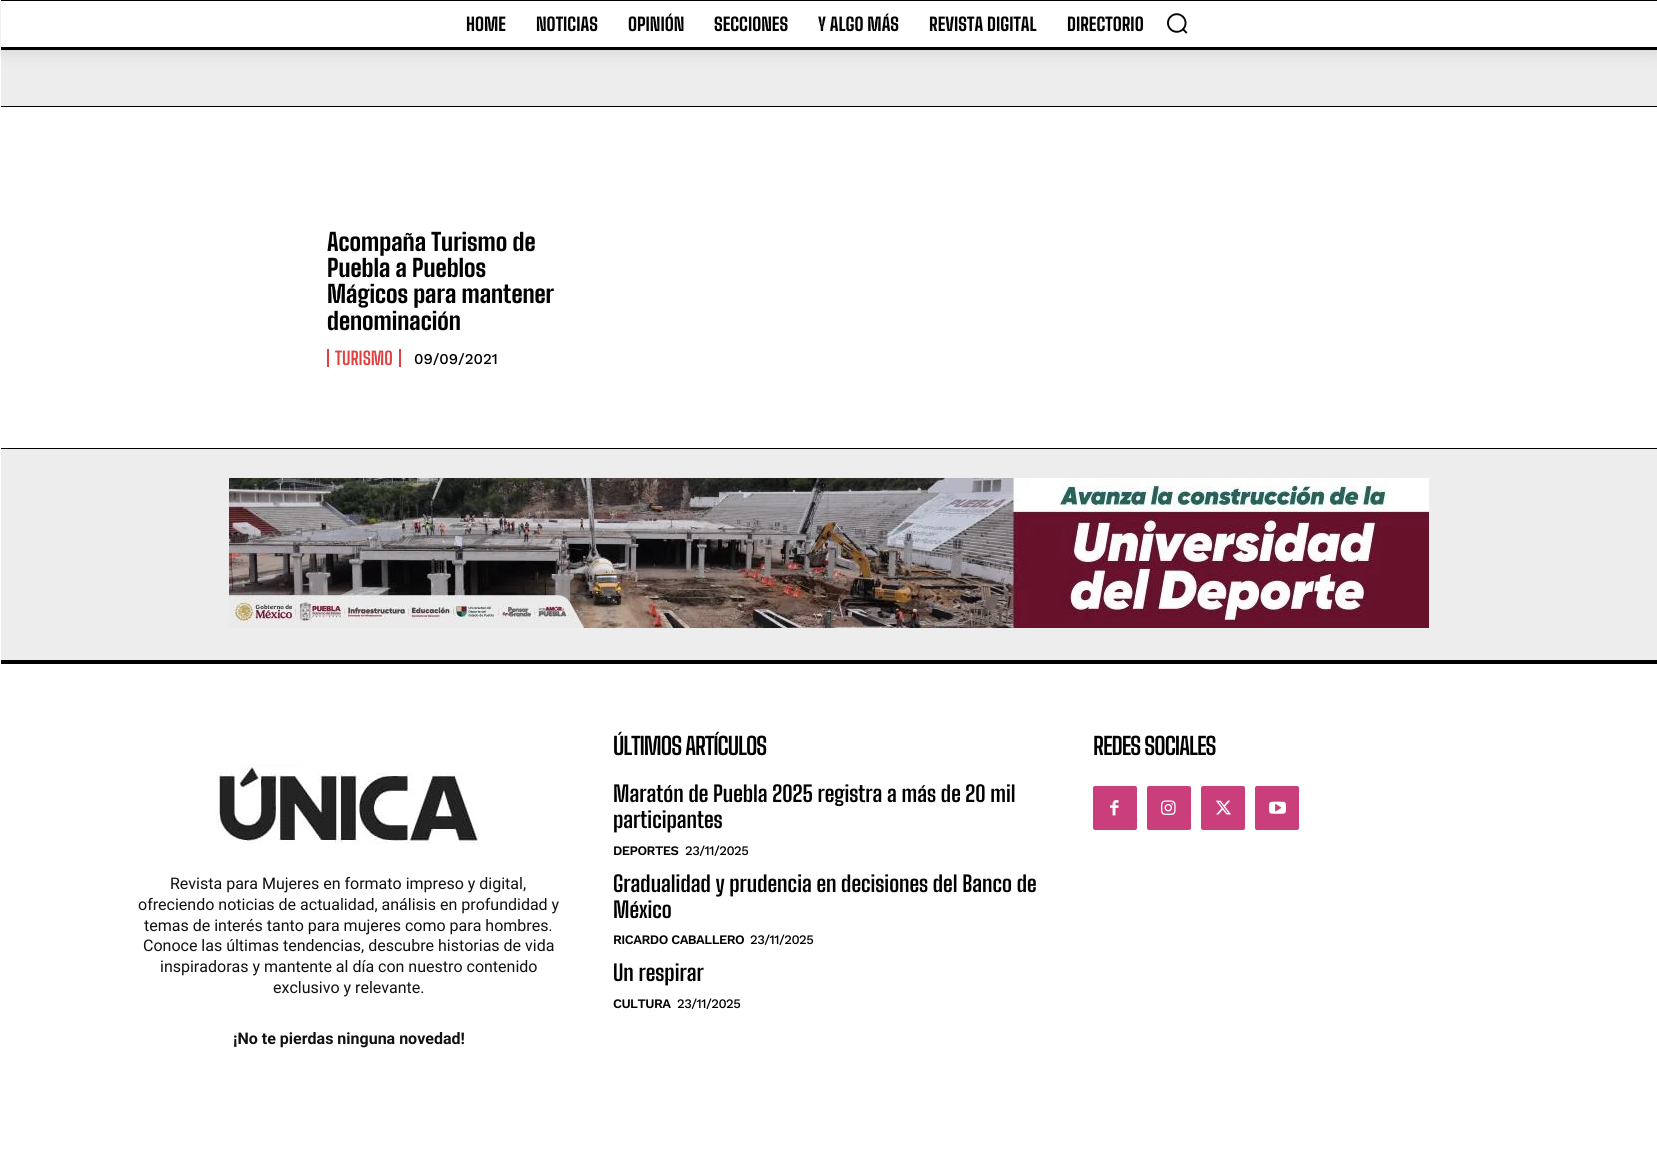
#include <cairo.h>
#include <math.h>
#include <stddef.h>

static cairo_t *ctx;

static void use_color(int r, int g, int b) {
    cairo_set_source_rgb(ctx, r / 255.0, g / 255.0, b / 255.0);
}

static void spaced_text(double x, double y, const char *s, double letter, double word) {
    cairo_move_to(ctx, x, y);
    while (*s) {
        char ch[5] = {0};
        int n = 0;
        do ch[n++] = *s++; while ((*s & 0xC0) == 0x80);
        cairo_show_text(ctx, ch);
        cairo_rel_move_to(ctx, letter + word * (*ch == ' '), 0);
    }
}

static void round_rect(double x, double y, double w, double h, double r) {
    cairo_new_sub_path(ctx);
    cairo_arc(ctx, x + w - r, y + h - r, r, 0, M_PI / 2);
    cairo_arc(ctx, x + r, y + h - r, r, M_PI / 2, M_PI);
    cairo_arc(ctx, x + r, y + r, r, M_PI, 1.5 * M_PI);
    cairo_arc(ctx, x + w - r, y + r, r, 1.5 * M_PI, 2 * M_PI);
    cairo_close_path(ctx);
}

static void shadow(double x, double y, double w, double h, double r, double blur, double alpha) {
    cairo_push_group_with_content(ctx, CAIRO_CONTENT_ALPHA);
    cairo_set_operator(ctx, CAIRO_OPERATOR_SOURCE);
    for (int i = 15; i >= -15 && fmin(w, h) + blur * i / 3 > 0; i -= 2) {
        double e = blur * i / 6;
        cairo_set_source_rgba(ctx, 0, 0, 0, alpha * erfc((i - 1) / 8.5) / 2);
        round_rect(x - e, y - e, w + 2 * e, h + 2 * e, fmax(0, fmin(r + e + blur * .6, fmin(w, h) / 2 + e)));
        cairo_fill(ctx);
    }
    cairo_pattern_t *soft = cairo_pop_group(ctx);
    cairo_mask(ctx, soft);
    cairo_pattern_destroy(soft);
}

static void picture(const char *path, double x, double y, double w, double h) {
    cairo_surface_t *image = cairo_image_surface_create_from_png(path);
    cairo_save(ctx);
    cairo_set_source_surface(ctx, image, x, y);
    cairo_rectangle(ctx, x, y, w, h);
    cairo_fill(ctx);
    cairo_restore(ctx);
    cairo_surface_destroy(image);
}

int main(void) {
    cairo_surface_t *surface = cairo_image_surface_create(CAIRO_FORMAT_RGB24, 1657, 1161);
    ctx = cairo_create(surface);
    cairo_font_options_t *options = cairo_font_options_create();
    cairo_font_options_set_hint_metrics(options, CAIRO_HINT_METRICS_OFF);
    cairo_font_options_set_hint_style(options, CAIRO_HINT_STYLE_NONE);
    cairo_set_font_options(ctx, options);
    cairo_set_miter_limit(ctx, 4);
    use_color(255, 255, 255);
    cairo_paint(ctx);
    use_color(0, 0, 0);
    cairo_rectangle(ctx, 1, 0, 1656, 1);
    cairo_fill(ctx);
    cairo_rectangle(ctx, 1, 47, 1656, 3);
    cairo_fill(ctx);
    use_color(237, 237, 237);
    cairo_rectangle(ctx, 1, 50, 1656, 56);
    cairo_fill(ctx);
    cairo_save(ctx);
    cairo_set_fill_rule(ctx, CAIRO_FILL_RULE_EVEN_ODD);
    cairo_new_path(ctx);
    cairo_move_to(ctx, 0, 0);
    cairo_line_to(ctx, 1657, 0);
    cairo_line_to(ctx, 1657, 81);
    cairo_line_to(ctx, 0, 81);
    cairo_close_path(ctx);
    cairo_move_to(ctx, 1, 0);
    cairo_line_to(ctx, 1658, 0);
    cairo_line_to(ctx, 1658, 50);
    cairo_line_to(ctx, 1, 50);
    cairo_close_path(ctx);
    cairo_clip(ctx);
    use_color(0, 0, 0);
    shadow(1, 0, 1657, 50, 0, 10, 0.12);
    cairo_restore(ctx);
    cairo_select_font_face(ctx, "Big Shoulders Text ExtraBold", CAIRO_FONT_SLANT_NORMAL, CAIRO_FONT_WEIGHT_NORMAL);
    cairo_set_font_size(ctx, 18);
    use_color(0, 0, 0);
    cairo_move_to(ctx, 466, 31);
    cairo_show_text(ctx, "HOME");
    cairo_move_to(ctx, 536, 31);
    cairo_show_text(ctx, "NOTICIAS");
    cairo_move_to(ctx, 628, 31);
    cairo_show_text(ctx, "OPINIÓN");
    cairo_move_to(ctx, 714, 31);
    cairo_show_text(ctx, "SECCIONES");
    cairo_move_to(ctx, 818, 31);
    cairo_show_text(ctx, "Y ALGO MÁS");
    cairo_move_to(ctx, 929, 31);
    cairo_show_text(ctx, "REVISTA DIGITAL");
    cairo_move_to(ctx, 1067, 31);
    cairo_show_text(ctx, "DIRECTORIO");
    picture("img1.png", 1167, 13, 21, 21);
    cairo_rectangle(ctx, 1, 106, 1656, 1);
    cairo_fill(ctx);
    cairo_set_font_size(ctx, 24);
    cairo_move_to(ctx, 327, 251);
    cairo_show_text(ctx, "Acompaña Turismo de");
    cairo_move_to(ctx, 327, 277);
    cairo_show_text(ctx, "Puebla a Pueblos");
    cairo_move_to(ctx, 327, 303);
    cairo_show_text(ctx, "Mágicos para mantener");
    cairo_move_to(ctx, 327, 330);
    cairo_show_text(ctx, "denominación");
    use_color(224, 64, 64);
    cairo_rectangle(ctx, 399, 349, 2, 18);
    cairo_fill(ctx);
    cairo_rectangle(ctx, 327, 349, 2, 18);
    cairo_fill(ctx);
    cairo_select_font_face(ctx, "Big Shoulders Text", CAIRO_FONT_SLANT_NORMAL, CAIRO_FONT_WEIGHT_BOLD);
    cairo_set_font_size(ctx, 18);
    cairo_move_to(ctx, 335, 365);
    cairo_show_text(ctx, "TURISMO");
    cairo_select_font_face(ctx, "Work Sans Medium", CAIRO_FONT_SLANT_NORMAL, CAIRO_FONT_WEIGHT_NORMAL);
    cairo_set_font_size(ctx, 15);
    use_color(0, 0, 0);
    cairo_move_to(ctx, 414, 364);
    cairo_show_text(ctx, "09/09/2021");
    use_color(237, 237, 237);
    cairo_rectangle(ctx, 1, 449, 1656, 211);
    cairo_fill(ctx);
    use_color(0, 0, 0);
    cairo_rectangle(ctx, 1, 448, 1656, 1);
    cairo_fill(ctx);
    cairo_rectangle(ctx, 1, 660, 1656, 4);
    cairo_fill(ctx);
    picture("img2.png", 229, 478, 1200, 150);
    cairo_select_font_face(ctx, "Big Shoulders Text", CAIRO_FONT_SLANT_NORMAL, CAIRO_FONT_WEIGHT_BOLD);
    cairo_set_font_size(ctx, 24);
    spaced_text(613, 755, "ÚLTIMOS ARTÍCULOS", -1, 0);
    cairo_set_font_size(ctx, 22);
    cairo_move_to(ctx, 613, 802);
    cairo_show_text(ctx, "Maratón de Puebla 2025 registra a más de 20 mil");
    cairo_move_to(ctx, 613, 828);
    cairo_show_text(ctx, "participantes");
    cairo_select_font_face(ctx, "Work Sans SemiBold", CAIRO_FONT_SLANT_NORMAL, CAIRO_FONT_WEIGHT_NORMAL);
    cairo_set_font_size(ctx, 13);
    spaced_text(613, 855, "DEPORTES", -0.5, 0);
    cairo_select_font_face(ctx, "Work Sans Medium", CAIRO_FONT_SLANT_NORMAL, CAIRO_FONT_WEIGHT_NORMAL);
    spaced_text(685, 855, "23/11/2025", -0.5, 0);
    cairo_select_font_face(ctx, "Big Shoulders Text", CAIRO_FONT_SLANT_NORMAL, CAIRO_FONT_WEIGHT_BOLD);
    cairo_set_font_size(ctx, 22);
    cairo_move_to(ctx, 613, 892);
    cairo_show_text(ctx, "Gradualidad y prudencia en decisiones del Banco de");
    cairo_move_to(ctx, 613, 918);
    cairo_show_text(ctx, "México");
    cairo_select_font_face(ctx, "Work Sans SemiBold", CAIRO_FONT_SLANT_NORMAL, CAIRO_FONT_WEIGHT_NORMAL);
    cairo_set_font_size(ctx, 13);
    spaced_text(613, 944, "RICARDO CABALLERO", -0.5, 0);
    cairo_select_font_face(ctx, "Work Sans Medium", CAIRO_FONT_SLANT_NORMAL, CAIRO_FONT_WEIGHT_NORMAL);
    spaced_text(750, 944, "23/11/2025", -0.5, 0);
    cairo_select_font_face(ctx, "Big Shoulders Text", CAIRO_FONT_SLANT_NORMAL, CAIRO_FONT_WEIGHT_BOLD);
    cairo_set_font_size(ctx, 22);
    cairo_move_to(ctx, 613, 981);
    cairo_show_text(ctx, "Un respirar");
    cairo_select_font_face(ctx, "Work Sans SemiBold", CAIRO_FONT_SLANT_NORMAL, CAIRO_FONT_WEIGHT_NORMAL);
    cairo_set_font_size(ctx, 13);
    spaced_text(613, 1008, "CULTURA", -0.5, 0);
    cairo_select_font_face(ctx, "Work Sans Medium", CAIRO_FONT_SLANT_NORMAL, CAIRO_FONT_WEIGHT_NORMAL);
    spaced_text(677, 1008, "23/11/2025", -0.5, 0);
    cairo_select_font_face(ctx, "Big Shoulders Text", CAIRO_FONT_SLANT_NORMAL, CAIRO_FONT_WEIGHT_BOLD);
    cairo_set_font_size(ctx, 24);
    spaced_text(1093, 755, "REDES SOCIALES", -1, 0);
    use_color(202, 62, 124);
    round_rect(1093, 786, 44, 44, 2);
    cairo_fill(ctx);
    picture("img3.png", 1110, 800, 9, 16);
    round_rect(1147, 786, 44, 44, 2);
    cairo_fill(ctx);
    picture("img4.png", 1161, 800, 15, 15);
    round_rect(1201, 786, 44, 44, 2);
    cairo_fill(ctx);
    picture("img5.png", 1216, 800, 15, 15);
    round_rect(1255, 786, 44, 44, 2);
    cairo_fill(ctx);
    picture("img6.png", 1269, 801, 17, 13);
    picture("img7.png", 215, 764, 264, 80);
    cairo_select_font_face(ctx, "Roboto", CAIRO_FONT_SLANT_NORMAL, CAIRO_FONT_WEIGHT_NORMAL);
    cairo_set_font_size(ctx, 16);
    use_color(17, 17, 17);
    cairo_move_to(ctx, 170, 889);
    cairo_show_text(ctx, "Revista para Mujeres en formato impreso y digital,");
    cairo_move_to(ctx, 138, 910);
    cairo_show_text(ctx, "ofreciendo noticias de actualidad, análisis en profundidad y");
    cairo_move_to(ctx, 144, 931);
    cairo_show_text(ctx, "temas de interés tanto para mujeres como para hombres.");
    cairo_move_to(ctx, 143, 951);
    cairo_show_text(ctx, "Conoce las últimas tendencias, descubre historias de vida");
    cairo_move_to(ctx, 160, 972);
    cairo_show_text(ctx, "inspiradoras y mantente al día con nuestro contenido");
    cairo_move_to(ctx, 273, 993);
    cairo_show_text(ctx, "exclusivo y relevante.");
    cairo_select_font_face(ctx, "Roboto", CAIRO_FONT_SLANT_NORMAL, CAIRO_FONT_WEIGHT_BOLD);
    cairo_move_to(ctx, 233, 1044);
    cairo_show_text(ctx, "¡No te pierdas ninguna novedad!");
    cairo_surface_write_to_png(surface, "result.png");
    cairo_font_options_destroy(options);
    cairo_destroy(ctx);
    cairo_surface_destroy(surface);
    return 0;
}
